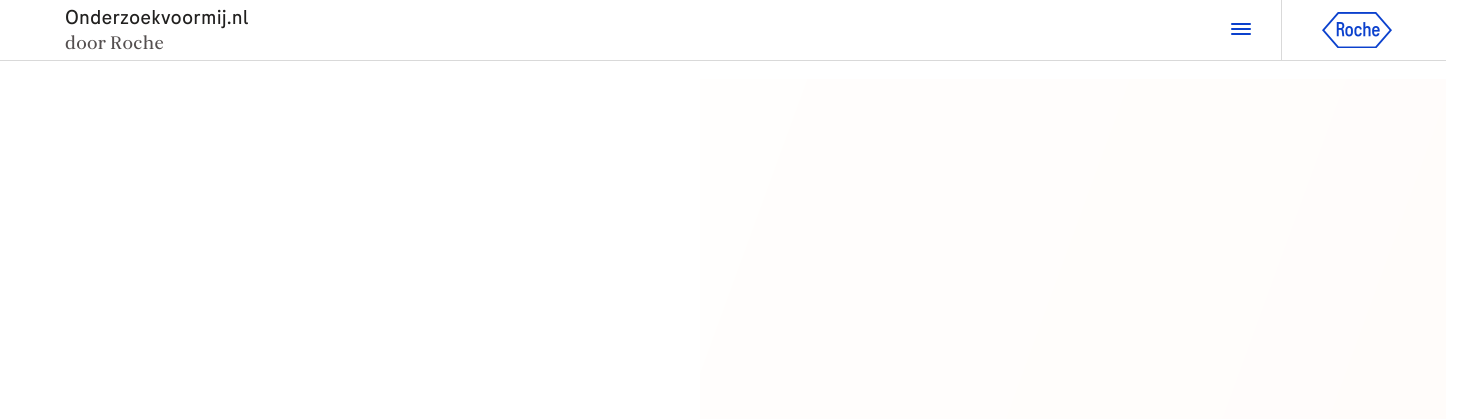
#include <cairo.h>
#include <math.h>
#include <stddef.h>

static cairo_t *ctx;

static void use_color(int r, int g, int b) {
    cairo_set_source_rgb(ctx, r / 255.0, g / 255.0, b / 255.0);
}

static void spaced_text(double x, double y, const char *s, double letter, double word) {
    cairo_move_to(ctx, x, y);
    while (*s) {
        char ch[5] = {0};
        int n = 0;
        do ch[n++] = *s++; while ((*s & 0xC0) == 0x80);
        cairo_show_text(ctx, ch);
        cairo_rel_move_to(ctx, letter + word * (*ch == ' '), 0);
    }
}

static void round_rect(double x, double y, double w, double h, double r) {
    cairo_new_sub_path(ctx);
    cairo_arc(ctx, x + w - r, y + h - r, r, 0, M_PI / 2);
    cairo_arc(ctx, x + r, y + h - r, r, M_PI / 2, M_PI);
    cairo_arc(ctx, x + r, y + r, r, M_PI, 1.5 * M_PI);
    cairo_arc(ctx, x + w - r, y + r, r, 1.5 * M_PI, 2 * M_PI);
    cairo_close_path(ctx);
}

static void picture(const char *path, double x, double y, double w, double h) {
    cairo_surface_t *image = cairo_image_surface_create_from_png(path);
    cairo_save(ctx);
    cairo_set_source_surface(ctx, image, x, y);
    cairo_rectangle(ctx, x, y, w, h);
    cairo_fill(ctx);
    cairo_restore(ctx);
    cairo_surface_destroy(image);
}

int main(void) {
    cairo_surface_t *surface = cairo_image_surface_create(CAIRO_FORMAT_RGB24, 1461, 419);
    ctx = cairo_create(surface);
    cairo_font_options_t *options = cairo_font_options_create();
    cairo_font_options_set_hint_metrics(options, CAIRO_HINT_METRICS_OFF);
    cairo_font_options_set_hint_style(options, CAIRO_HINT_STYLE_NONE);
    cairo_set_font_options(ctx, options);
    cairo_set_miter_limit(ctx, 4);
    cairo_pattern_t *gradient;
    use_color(255, 255, 255);
    cairo_paint(ctx);
    use_color(217, 217, 217);
    cairo_rectangle(ctx, 0, 60, 1446, 1);
    cairo_fill(ctx);
    cairo_select_font_face(ctx, "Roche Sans", CAIRO_FONT_SLANT_NORMAL, CAIRO_FONT_WEIGHT_NORMAL);
    cairo_set_font_size(ctx, 20);
    use_color(33, 32, 31);
    spaced_text(65, 24, "Onderzoekvoormij.nl", 0.1, 0);
    cairo_select_font_face(ctx, "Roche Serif", CAIRO_FONT_SLANT_NORMAL, CAIRO_FONT_WEIGHT_NORMAL);
    cairo_set_font_size(ctx, 18);
    use_color(84, 79, 79);
    spaced_text(65, 49, "door Roche", 0.25, 0);
    use_color(11, 65, 205);
    round_rect(1231, 28, 20, 2, 1);
    cairo_fill(ctx);
    round_rect(1231, 23, 20, 2, 1);
    cairo_fill(ctx);
    round_rect(1231, 33, 20, 2, 1);
    cairo_fill(ctx);
    use_color(217, 217, 217);
    cairo_rectangle(ctx, 1281, 0, 1, 60);
    cairo_fill(ctx);
    picture("img1.png", 1322, 12, 70, 36);
    gradient = cairo_pattern_create_linear(-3.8, 89, 1450, 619);
    cairo_pattern_add_color_stop_rgba(gradient, 0, 1, 1, 1, 1);
    cairo_pattern_add_color_stop_rgba(gradient, 1, 1, 0.988, 0.98, 1);
    cairo_set_source(ctx, gradient);
    cairo_pattern_destroy(gradient);
    cairo_rectangle(ctx, 700, 79, 746, 340);
    cairo_fill(ctx);
    cairo_surface_write_to_png(surface, "result.png");
    cairo_font_options_destroy(options);
    cairo_destroy(ctx);
    cairo_surface_destroy(surface);
    return 0;
}
